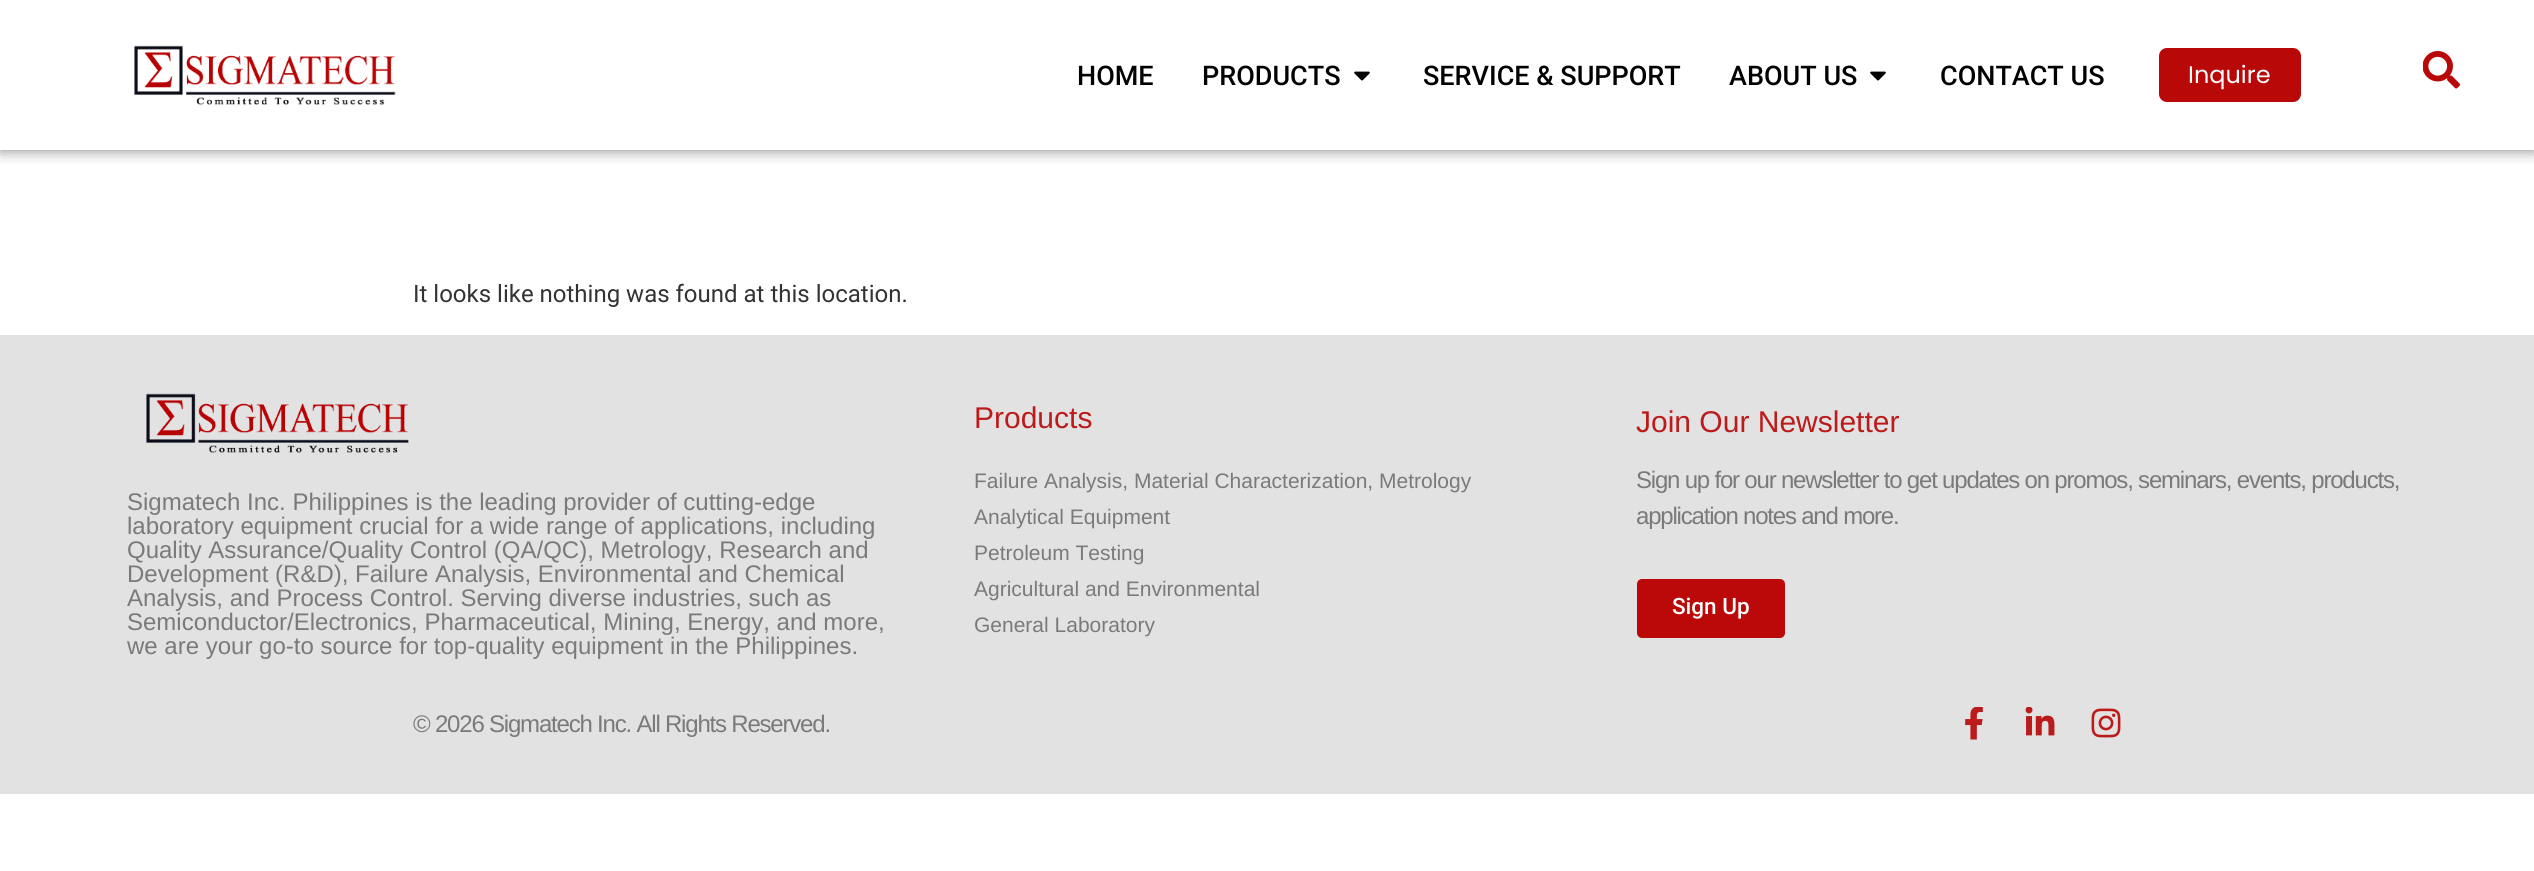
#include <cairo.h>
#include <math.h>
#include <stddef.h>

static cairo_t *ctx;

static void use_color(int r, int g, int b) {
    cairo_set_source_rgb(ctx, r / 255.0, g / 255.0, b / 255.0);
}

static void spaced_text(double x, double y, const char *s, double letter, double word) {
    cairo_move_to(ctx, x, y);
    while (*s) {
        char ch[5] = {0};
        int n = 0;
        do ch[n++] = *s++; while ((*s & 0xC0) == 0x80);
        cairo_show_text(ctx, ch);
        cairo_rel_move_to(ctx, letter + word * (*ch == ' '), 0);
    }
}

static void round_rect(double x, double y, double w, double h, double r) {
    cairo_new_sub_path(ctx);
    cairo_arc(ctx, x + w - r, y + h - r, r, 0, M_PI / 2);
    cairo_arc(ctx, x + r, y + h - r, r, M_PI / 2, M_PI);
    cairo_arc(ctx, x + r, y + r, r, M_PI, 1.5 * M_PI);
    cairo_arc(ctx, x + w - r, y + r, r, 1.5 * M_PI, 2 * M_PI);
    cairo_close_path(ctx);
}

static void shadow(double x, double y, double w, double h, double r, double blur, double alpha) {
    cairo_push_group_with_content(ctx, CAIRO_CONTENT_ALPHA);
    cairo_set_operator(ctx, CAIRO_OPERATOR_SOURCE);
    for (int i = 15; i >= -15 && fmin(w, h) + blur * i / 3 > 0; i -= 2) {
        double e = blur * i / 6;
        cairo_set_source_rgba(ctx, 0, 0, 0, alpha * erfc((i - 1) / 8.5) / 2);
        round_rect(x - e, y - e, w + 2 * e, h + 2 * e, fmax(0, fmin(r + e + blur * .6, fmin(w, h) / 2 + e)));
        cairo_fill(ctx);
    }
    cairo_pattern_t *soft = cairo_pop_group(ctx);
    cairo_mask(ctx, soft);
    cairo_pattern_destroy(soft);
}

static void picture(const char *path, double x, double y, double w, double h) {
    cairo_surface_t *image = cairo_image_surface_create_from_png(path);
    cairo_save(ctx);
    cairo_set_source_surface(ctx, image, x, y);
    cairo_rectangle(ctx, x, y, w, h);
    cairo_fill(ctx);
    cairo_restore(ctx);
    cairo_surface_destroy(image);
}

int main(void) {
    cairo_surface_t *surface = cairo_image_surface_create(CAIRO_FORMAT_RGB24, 2534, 871);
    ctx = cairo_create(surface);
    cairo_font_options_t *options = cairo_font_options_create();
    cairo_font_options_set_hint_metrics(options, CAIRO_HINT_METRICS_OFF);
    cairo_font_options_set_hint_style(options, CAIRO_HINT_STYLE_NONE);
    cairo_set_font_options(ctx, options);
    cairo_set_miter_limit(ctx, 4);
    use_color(255, 255, 255);
    cairo_paint(ctx);
    cairo_save(ctx);
    cairo_rectangle(ctx, 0, 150, 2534, 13);
    cairo_clip(ctx);
    use_color(0, 0, 0);
    shadow(0, 0, 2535, 150, 0, 7.5, 0.5);
    cairo_restore(ctx);
    picture("img1.png", 134, 45, 262, 60);
    cairo_select_font_face(ctx, "Roboto Medium", CAIRO_FONT_SLANT_NORMAL, CAIRO_FONT_WEIGHT_NORMAL);
    cairo_set_font_size(ctx, 27);
    use_color(2, 1, 1);
    cairo_move_to(ctx, 1077, 85);
    cairo_show_text(ctx, "HOME");
    cairo_move_to(ctx, 1202, 85);
    cairo_show_text(ctx, "PRODUCTS");
    picture("img2.png", 1354, 71, 16, 10);
    cairo_move_to(ctx, 1423, 85);
    cairo_show_text(ctx, "SERVICE & SUPPORT");
    cairo_move_to(ctx, 1729, 85);
    cairo_show_text(ctx, "ABOUT US");
    picture("img2.png", 1870, 71, 16, 10);
    cairo_move_to(ctx, 1940, 85);
    cairo_show_text(ctx, "CONTACT US");
    use_color(185, 8, 8);
    round_rect(2159, 48, 142, 54, 8);
    cairo_fill(ctx);
    cairo_select_font_face(ctx, "Poppins", CAIRO_FONT_SLANT_NORMAL, CAIRO_FONT_WEIGHT_NORMAL);
    cairo_set_font_size(ctx, 24);
    use_color(255, 255, 255);
    cairo_move_to(ctx, 2188, 83);
    cairo_show_text(ctx, "Inquire");
    picture("img3.png", 2423, 51, 37, 38);
    cairo_select_font_face(ctx, "Roboto", CAIRO_FONT_SLANT_NORMAL, CAIRO_FONT_WEIGHT_NORMAL);
    use_color(51, 51, 51);
    cairo_move_to(ctx, 413, 302);
    cairo_show_text(ctx, "It looks like nothing was found at this location.");
    use_color(226, 226, 226);
    cairo_rectangle(ctx, 0, 335, 2534, 459);
    cairo_fill(ctx);
    picture("img4.png", 146, 393, 263, 60);
    cairo_select_font_face(ctx, "Liberation Sans", CAIRO_FONT_SLANT_NORMAL, CAIRO_FONT_WEIGHT_NORMAL);
    use_color(122, 122, 122);
    cairo_move_to(ctx, 127, 510);
    cairo_show_text(ctx, "Sigmatech Inc. Philippines is the leading provider of cutting-edge");
    cairo_move_to(ctx, 127, 534);
    cairo_show_text(ctx, "laboratory equipment crucial for a wide range of applications, including");
    cairo_move_to(ctx, 127, 558);
    cairo_show_text(ctx, "Quality Assurance/Quality Control (QA/QC), Metrology, Research and");
    cairo_move_to(ctx, 127, 582);
    cairo_show_text(ctx, "Development (R&D), Failure Analysis, Environmental and Chemical");
    cairo_move_to(ctx, 127, 606);
    cairo_show_text(ctx, "Analysis, and Process Control. Serving diverse industries, such as");
    cairo_move_to(ctx, 127, 630);
    cairo_show_text(ctx, "Semiconductor/Electronics, Pharmaceutical, Mining, Energy, and more,");
    cairo_move_to(ctx, 127, 654);
    cairo_show_text(ctx, "we are your go-to source for top-quality equipment in the Philippines.");
    cairo_set_font_size(ctx, 30);
    use_color(188, 27, 27);
    cairo_move_to(ctx, 974, 428);
    cairo_show_text(ctx, "Products");
    cairo_set_font_size(ctx, 21);
    use_color(122, 122, 122);
    cairo_move_to(ctx, 974, 488);
    cairo_show_text(ctx, "Failure Analysis, Material Characterization, Metrology");
    cairo_move_to(ctx, 974, 524);
    cairo_show_text(ctx, "Analytical Equipment");
    cairo_move_to(ctx, 974, 560);
    cairo_show_text(ctx, "Petroleum Testing");
    cairo_move_to(ctx, 974, 596);
    cairo_show_text(ctx, "Agricultural and Environmental");
    cairo_move_to(ctx, 974, 632);
    cairo_show_text(ctx, "General Laboratory");
    cairo_set_font_size(ctx, 30);
    use_color(188, 27, 27);
    cairo_move_to(ctx, 1636, 432);
    cairo_show_text(ctx, "Join Our Newsletter");
    cairo_set_font_size(ctx, 24);
    use_color(122, 122, 122);
    spaced_text(1636, 488, "Sign up for our newsletter to get updates on promos, seminars, events, products,", -1.2, 0);
    spaced_text(1636, 524, "application notes and more.", -1.2, 0);
    use_color(187, 9, 9);
    round_rect(1637, 579, 148, 59, 5);
    cairo_fill(ctx);
    cairo_select_font_face(ctx, "Roboto Medium", CAIRO_FONT_SLANT_NORMAL, CAIRO_FONT_WEIGHT_NORMAL);
    cairo_set_font_size(ctx, 22.5);
    use_color(255, 255, 255);
    cairo_move_to(ctx, 1672, 614);
    cairo_show_text(ctx, "Sign Up");
    cairo_select_font_face(ctx, "Liberation Sans", CAIRO_FONT_SLANT_NORMAL, CAIRO_FONT_WEIGHT_NORMAL);
    cairo_set_font_size(ctx, 24);
    use_color(122, 122, 122);
    spaced_text(413, 732, "© 2026 Sigmatech Inc. All Rights Reserved.", -1.2, 0);
    picture("img5.png", 1965, 707, 18, 33);
    picture("img6.png", 2025, 707, 30, 29);
    picture("img7.png", 2091, 708, 30, 30);
    cairo_surface_write_to_png(surface, "result.png");
    cairo_font_options_destroy(options);
    cairo_destroy(ctx);
    cairo_surface_destroy(surface);
    return 0;
}
